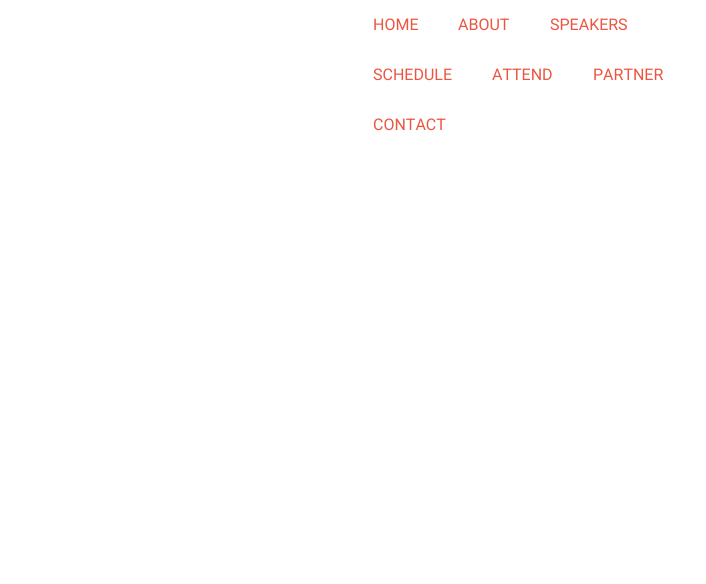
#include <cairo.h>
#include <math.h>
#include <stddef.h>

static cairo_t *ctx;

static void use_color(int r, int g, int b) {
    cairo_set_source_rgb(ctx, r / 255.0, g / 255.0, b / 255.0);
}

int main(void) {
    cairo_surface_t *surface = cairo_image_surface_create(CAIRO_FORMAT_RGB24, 706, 584);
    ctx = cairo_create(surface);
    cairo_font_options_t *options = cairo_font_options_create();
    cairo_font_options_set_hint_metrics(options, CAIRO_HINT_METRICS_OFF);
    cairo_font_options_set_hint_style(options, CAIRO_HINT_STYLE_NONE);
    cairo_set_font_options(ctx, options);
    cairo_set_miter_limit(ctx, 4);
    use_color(255, 255, 255);
    cairo_paint(ctx);
    cairo_select_font_face(ctx, "Roboto", CAIRO_FONT_SLANT_NORMAL, CAIRO_FONT_WEIGHT_NORMAL);
    cairo_set_font_size(ctx, 16);
    use_color(236, 85, 65);
    cairo_move_to(ctx, 373, 30);
    cairo_show_text(ctx, "HOME");
    cairo_move_to(ctx, 458, 30);
    cairo_show_text(ctx, "ABOUT");
    cairo_move_to(ctx, 550, 30);
    cairo_show_text(ctx, "SPEAKERS");
    cairo_move_to(ctx, 373, 80);
    cairo_show_text(ctx, "SCHEDULE");
    cairo_move_to(ctx, 492, 80);
    cairo_show_text(ctx, "ATTEND");
    cairo_move_to(ctx, 593, 80);
    cairo_show_text(ctx, "PARTNER");
    cairo_move_to(ctx, 373, 130);
    cairo_show_text(ctx, "CONTACT");
    cairo_surface_write_to_png(surface, "result.png");
    cairo_font_options_destroy(options);
    cairo_destroy(ctx);
    cairo_surface_destroy(surface);
    return 0;
}
